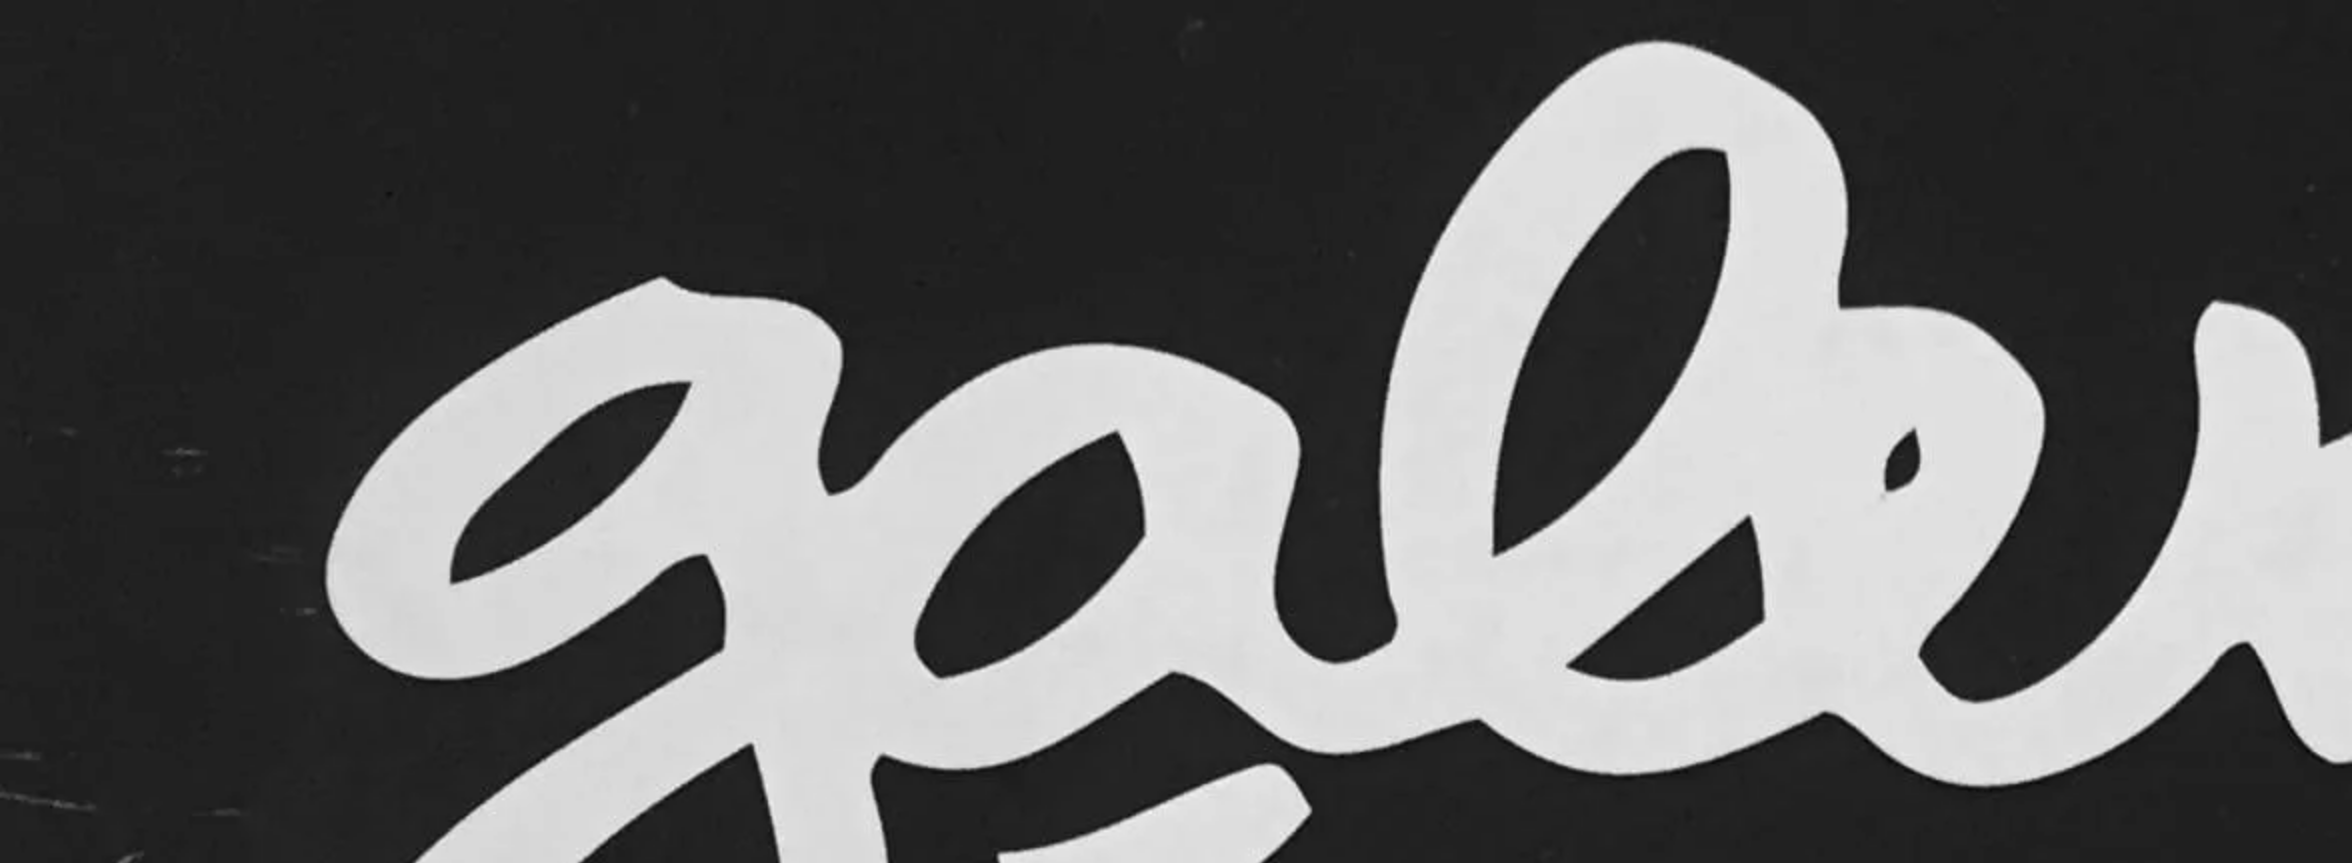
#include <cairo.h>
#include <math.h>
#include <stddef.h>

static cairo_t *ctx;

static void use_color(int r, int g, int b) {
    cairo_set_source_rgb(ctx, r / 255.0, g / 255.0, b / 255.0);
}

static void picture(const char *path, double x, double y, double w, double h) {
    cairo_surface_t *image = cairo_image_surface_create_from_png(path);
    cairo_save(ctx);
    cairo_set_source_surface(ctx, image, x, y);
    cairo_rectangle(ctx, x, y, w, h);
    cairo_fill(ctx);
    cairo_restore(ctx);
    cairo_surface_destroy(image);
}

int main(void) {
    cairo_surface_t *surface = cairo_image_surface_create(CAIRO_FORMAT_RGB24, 2352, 863);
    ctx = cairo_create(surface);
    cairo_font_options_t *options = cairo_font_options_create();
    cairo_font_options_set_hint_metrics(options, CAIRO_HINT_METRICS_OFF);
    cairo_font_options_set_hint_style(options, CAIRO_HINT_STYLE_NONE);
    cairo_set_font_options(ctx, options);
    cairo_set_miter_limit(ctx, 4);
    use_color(255, 255, 255);
    cairo_paint(ctx);
    picture("img1.png", 0, 0, 2352, 863);
    cairo_surface_write_to_png(surface, "result.png");
    cairo_font_options_destroy(options);
    cairo_destroy(ctx);
    cairo_surface_destroy(surface);
    return 0;
}
